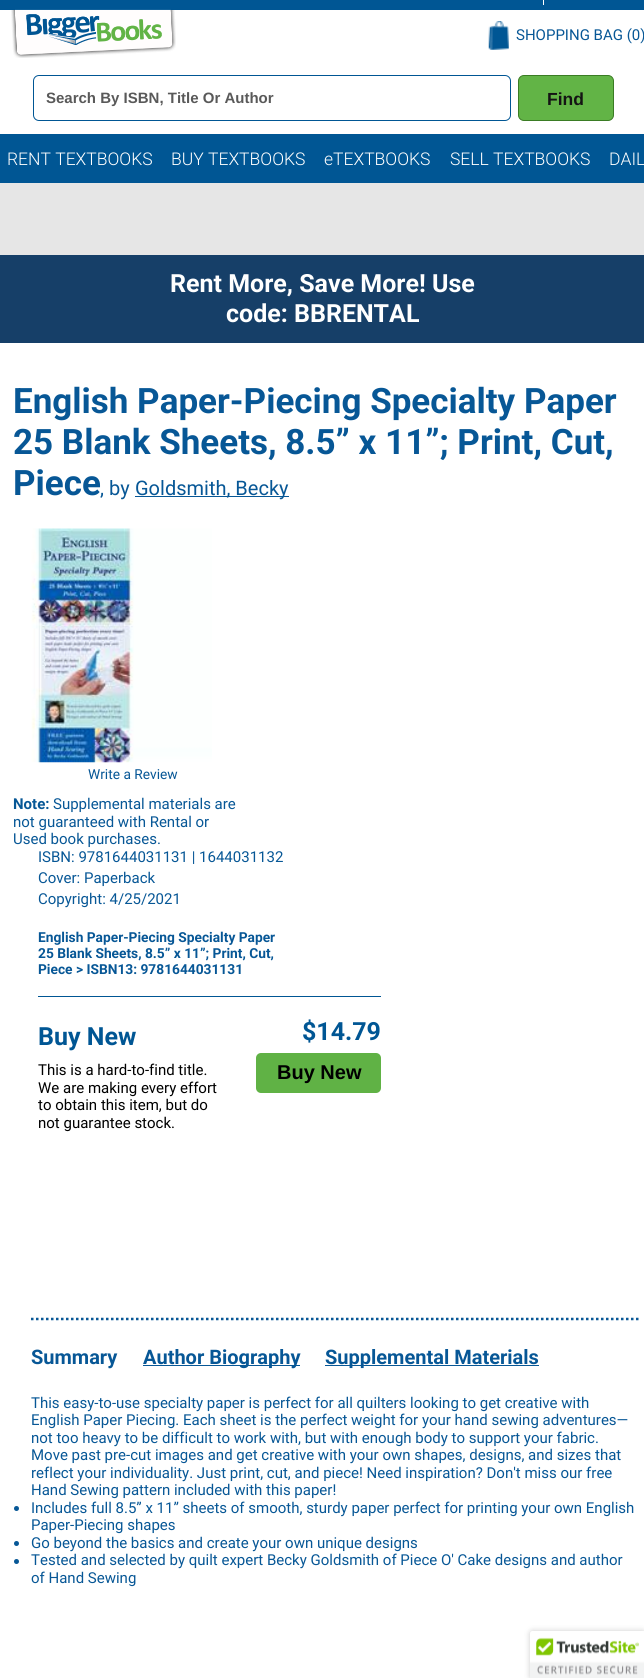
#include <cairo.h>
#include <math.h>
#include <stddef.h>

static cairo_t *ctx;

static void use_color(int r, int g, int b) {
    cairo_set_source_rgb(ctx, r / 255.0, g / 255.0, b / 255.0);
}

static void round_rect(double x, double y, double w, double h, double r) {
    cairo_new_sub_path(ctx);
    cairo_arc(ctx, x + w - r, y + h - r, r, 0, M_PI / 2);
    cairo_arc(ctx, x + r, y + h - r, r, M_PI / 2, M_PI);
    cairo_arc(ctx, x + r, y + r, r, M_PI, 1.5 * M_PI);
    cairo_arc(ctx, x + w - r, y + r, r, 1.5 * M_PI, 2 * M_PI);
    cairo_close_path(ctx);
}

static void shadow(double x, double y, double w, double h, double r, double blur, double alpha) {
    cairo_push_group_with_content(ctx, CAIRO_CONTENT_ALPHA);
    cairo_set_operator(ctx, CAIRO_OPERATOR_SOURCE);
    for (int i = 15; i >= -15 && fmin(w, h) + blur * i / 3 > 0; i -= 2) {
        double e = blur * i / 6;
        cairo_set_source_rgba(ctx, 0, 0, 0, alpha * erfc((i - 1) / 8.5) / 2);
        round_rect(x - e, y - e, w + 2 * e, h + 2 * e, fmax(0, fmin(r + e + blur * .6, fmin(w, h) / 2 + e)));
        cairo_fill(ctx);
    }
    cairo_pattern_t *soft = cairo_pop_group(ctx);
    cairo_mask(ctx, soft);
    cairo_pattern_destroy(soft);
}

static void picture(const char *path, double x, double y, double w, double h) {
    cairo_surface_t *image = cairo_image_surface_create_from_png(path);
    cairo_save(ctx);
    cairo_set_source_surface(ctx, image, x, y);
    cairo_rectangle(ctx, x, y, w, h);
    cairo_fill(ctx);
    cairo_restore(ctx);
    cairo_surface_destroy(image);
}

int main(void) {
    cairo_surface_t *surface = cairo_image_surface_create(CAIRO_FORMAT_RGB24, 644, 1678);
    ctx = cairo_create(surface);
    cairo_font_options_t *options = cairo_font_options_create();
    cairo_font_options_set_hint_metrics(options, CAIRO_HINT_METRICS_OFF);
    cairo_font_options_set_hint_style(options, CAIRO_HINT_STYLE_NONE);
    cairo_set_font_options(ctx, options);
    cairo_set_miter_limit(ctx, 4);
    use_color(255, 255, 255);
    cairo_paint(ctx);
    use_color(0, 86, 148);
    cairo_rectangle(ctx, 0, 0, 644, 10);
    cairo_fill(ctx);
    use_color(255, 255, 255);
    cairo_rectangle(ctx, 543, 0, 1, 5);
    cairo_fill(ctx);
    picture("img1.png", 11, 9, 165, 49);
    picture("img2.png", 488, 21, 21, 29);
    cairo_select_font_face(ctx, "Roboto", CAIRO_FONT_SLANT_NORMAL, CAIRO_FONT_WEIGHT_NORMAL);
    cairo_set_font_size(ctx, 15);
    use_color(7, 87, 150);
    cairo_move_to(ctx, 516, 40);
    cairo_show_text(ctx, "SHOPPING BAG (0)");
    round_rect(33.5, 75.5, 477, 45, 5.5);
    use_color(0, 86, 148);
    cairo_set_line_width(ctx, 1);
    cairo_stroke(ctx);
    cairo_select_font_face(ctx, "Liberation Sans", CAIRO_FONT_SLANT_NORMAL, CAIRO_FONT_WEIGHT_BOLD);
    use_color(89, 89, 89);
    cairo_move_to(ctx, 46, 103);
    cairo_show_text(ctx, "Search By ISBN, Title Or Author");
    use_color(98, 180, 70);
    round_rect(518.5, 75.5, 95, 45, 5.5);
    cairo_fill_preserve(ctx);
    use_color(58, 124, 36);
    cairo_stroke(ctx);
    cairo_set_font_size(ctx, 17.5);
    use_color(20, 20, 20);
    cairo_move_to(ctx, 547, 105);
    cairo_show_text(ctx, "Find");
    use_color(0, 86, 148);
    cairo_rectangle(ctx, 0, 134, 644, 49);
    cairo_fill(ctx);
    cairo_select_font_face(ctx, "Roboto Light", CAIRO_FONT_SLANT_NORMAL, CAIRO_FONT_WEIGHT_NORMAL);
    use_color(255, 255, 255);
    cairo_move_to(ctx, 7, 165);
    cairo_show_text(ctx, "RENT TEXTBOOKS");
    cairo_move_to(ctx, 171, 165);
    cairo_show_text(ctx, "BUY TEXTBOOKS");
    cairo_move_to(ctx, 324, 165);
    cairo_show_text(ctx, "eTEXTBOOKS");
    cairo_move_to(ctx, 450, 165);
    cairo_show_text(ctx, "SELL TEXTBOOKS");
    cairo_move_to(ctx, 609, 165);
    cairo_show_text(ctx, "DAIL");
    use_color(230, 230, 230);
    cairo_rectangle(ctx, 0, 183, 644, 72);
    cairo_fill(ctx);
    use_color(22, 63, 104);
    cairo_rectangle(ctx, 0, 255, 644, 88);
    cairo_fill(ctx);
    cairo_select_font_face(ctx, "Roboto", CAIRO_FONT_SLANT_NORMAL, CAIRO_FONT_WEIGHT_BOLD);
    cairo_set_font_size(ctx, 25);
    use_color(255, 255, 255);
    cairo_move_to(ctx, 170, 292);
    cairo_show_text(ctx, "Rent More, Save More! Use");
    cairo_move_to(ctx, 226, 322);
    cairo_show_text(ctx, "code: BBRENTAL");
    cairo_set_font_size(ctx, 35);
    use_color(7, 87, 150);
    cairo_move_to(ctx, 13, 413);
    cairo_show_text(ctx, "English Paper-Piecing Specialty Paper");
    cairo_move_to(ctx, 13, 454);
    cairo_show_text(ctx, "25 Blank Sheets, 8.5” x 11”; Print, Cut,");
    cairo_move_to(ctx, 13, 495);
    cairo_show_text(ctx, "Piece");
    cairo_select_font_face(ctx, "Roboto", CAIRO_FONT_SLANT_NORMAL, CAIRO_FONT_WEIGHT_NORMAL);
    cairo_set_font_size(ctx, 20);
    cairo_move_to(ctx, 100, 495);
    cairo_show_text(ctx, ", by");
    cairo_rectangle(ctx, 135, 496, 154, 1);
    cairo_fill(ctx);
    cairo_move_to(ctx, 135, 495);
    cairo_show_text(ctx, "Goldsmith, Becky");
    picture("img3.png", 31, 528, 181, 235);
    cairo_set_font_size(ctx, 13.75);
    cairo_move_to(ctx, 88, 779);
    cairo_show_text(ctx, "Write a Review");
    cairo_select_font_face(ctx, "Roboto", CAIRO_FONT_SLANT_NORMAL, CAIRO_FONT_WEIGHT_BOLD);
    cairo_set_font_size(ctx, 15);
    cairo_move_to(ctx, 13, 809);
    cairo_show_text(ctx, "Note:");
    cairo_select_font_face(ctx, "Roboto", CAIRO_FONT_SLANT_NORMAL, CAIRO_FONT_WEIGHT_NORMAL);
    cairo_move_to(ctx, 53, 809);
    cairo_show_text(ctx, "Supplemental materials are");
    cairo_move_to(ctx, 13, 827);
    cairo_show_text(ctx, "not guaranteed with Rental or");
    cairo_move_to(ctx, 13, 844);
    cairo_show_text(ctx, "Used book purchases.");
    cairo_move_to(ctx, 38, 862);
    cairo_show_text(ctx, "ISBN: 9781644031131 | 1644031132");
    cairo_move_to(ctx, 38, 883);
    cairo_show_text(ctx, "Cover: Paperback");
    cairo_move_to(ctx, 38, 904);
    cairo_show_text(ctx, "Copyright: 4/25/2021");
    cairo_select_font_face(ctx, "Roboto", CAIRO_FONT_SLANT_NORMAL, CAIRO_FONT_WEIGHT_BOLD);
    cairo_set_font_size(ctx, 13.75);
    cairo_move_to(ctx, 38, 942);
    cairo_show_text(ctx, "English Paper-Piecing Specialty Paper");
    cairo_move_to(ctx, 38, 958);
    cairo_show_text(ctx, "25 Blank Sheets, 8.5” x 11”; Print, Cut,");
    cairo_move_to(ctx, 38, 974);
    cairo_show_text(ctx, "Piece > ISBN13: 9781644031131");
    use_color(0, 86, 148);
    cairo_rectangle(ctx, 38, 996, 343, 1);
    cairo_fill(ctx);
    cairo_set_font_size(ctx, 25);
    cairo_move_to(ctx, 38, 1045);
    cairo_show_text(ctx, "Buy New");
    cairo_select_font_face(ctx, "Roboto", CAIRO_FONT_SLANT_NORMAL, CAIRO_FONT_WEIGHT_NORMAL);
    cairo_set_font_size(ctx, 15);
    use_color(0, 0, 0);
    cairo_move_to(ctx, 38, 1075);
    cairo_show_text(ctx, "This is a hard-to-find title.");
    cairo_move_to(ctx, 38, 1093);
    cairo_show_text(ctx, "We are making every effort");
    cairo_move_to(ctx, 38, 1110);
    cairo_show_text(ctx, "to obtain this item, but do");
    cairo_move_to(ctx, 38, 1128);
    cairo_show_text(ctx, "not guarantee stock.");
    cairo_select_font_face(ctx, "Roboto", CAIRO_FONT_SLANT_NORMAL, CAIRO_FONT_WEIGHT_BOLD);
    cairo_set_font_size(ctx, 25);
    use_color(0, 86, 148);
    cairo_move_to(ctx, 302, 1040);
    cairo_show_text(ctx, "$14.79");
    use_color(96, 178, 69);
    round_rect(256, 1053, 125, 40, 5);
    cairo_fill(ctx);
    cairo_select_font_face(ctx, "Liberation Sans", CAIRO_FONT_SLANT_NORMAL, CAIRO_FONT_WEIGHT_BOLD);
    cairo_set_font_size(ctx, 20);
    use_color(0, 0, 0);
    cairo_move_to(ctx, 277, 1079);
    cairo_show_text(ctx, "Buy New");
    cairo_new_path(ctx);
    cairo_move_to(ctx, 31, 1319);
    cairo_line_to(ctx, 639, 1319);
    use_color(8, 87, 150);
    cairo_set_line_width(ctx, 2.5);
    cairo_set_dash(ctx, (double[]){2.5, 2.5}, 2, 0);
    cairo_stroke(ctx);
    cairo_select_font_face(ctx, "Roboto", CAIRO_FONT_SLANT_NORMAL, CAIRO_FONT_WEIGHT_BOLD);
    use_color(7, 87, 150);
    cairo_move_to(ctx, 31, 1364);
    cairo_show_text(ctx, "Summary");
    cairo_rectangle(ctx, 143, 1365, 157, 1);
    cairo_fill(ctx);
    cairo_move_to(ctx, 143, 1364);
    cairo_show_text(ctx, "Author Biography");
    cairo_rectangle(ctx, 325, 1365, 214, 1);
    cairo_fill(ctx);
    cairo_move_to(ctx, 325, 1364);
    cairo_show_text(ctx, "Supplemental Materials");
    cairo_select_font_face(ctx, "Roboto", CAIRO_FONT_SLANT_NORMAL, CAIRO_FONT_WEIGHT_NORMAL);
    cairo_set_font_size(ctx, 15);
    cairo_move_to(ctx, 31, 1408);
    cairo_show_text(ctx, "This easy-to-use specialty paper is perfect for all quilters looking to get creative with");
    cairo_move_to(ctx, 31, 1425);
    cairo_show_text(ctx, "English Paper Piecing. Each sheet is the perfect weight for your hand sewing adventures—");
    cairo_move_to(ctx, 31, 1443);
    cairo_show_text(ctx, "not too heavy to be difficult to work with, but with enough body to support your fabric.");
    cairo_move_to(ctx, 31, 1460);
    cairo_show_text(ctx, "Move past pre-cut images and get creative with your own shapes, designs, and sizes that");
    cairo_move_to(ctx, 31, 1478);
    cairo_show_text(ctx, "reflect your individuality. Just print, cut, and piece! Need inspiration? Don't miss our free");
    cairo_move_to(ctx, 31, 1495);
    cairo_show_text(ctx, "Hand Sewing pattern included with this paper!");
    cairo_new_path(ctx);
    cairo_arc(ctx, 16.5, 1508.5, 2.5, 0, 2 * M_PI);
    cairo_fill(ctx);
    cairo_move_to(ctx, 31, 1513);
    cairo_show_text(ctx, "Includes full 8.5” x 11” sheets of smooth, sturdy paper perfect for printing your own English");
    cairo_move_to(ctx, 31, 1530);
    cairo_show_text(ctx, "Paper-Piecing shapes");
    cairo_new_path(ctx);
    cairo_arc(ctx, 16.5, 1543.5, 2.5, 0, 2 * M_PI);
    cairo_fill(ctx);
    cairo_move_to(ctx, 31, 1548);
    cairo_show_text(ctx, "Go beyond the basics and create your own unique designs");
    cairo_new_path(ctx);
    cairo_arc(ctx, 16.5, 1561.5, 2.5, 0, 2 * M_PI);
    cairo_fill(ctx);
    cairo_move_to(ctx, 31, 1565);
    cairo_show_text(ctx, "Tested and selected by quilt expert Becky Goldsmith of Piece O' Cake designs and author");
    cairo_move_to(ctx, 31, 1583);
    cairo_show_text(ctx, "of Hand Sewing");
    use_color(0, 0, 0);
    shadow(530, 1631, 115, 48, 2.5, 3, 0.2);
    use_color(255, 255, 255);
    cairo_new_path(ctx);
    cairo_move_to(ctx, 532.5, 1631);
    cairo_line_to(ctx, 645, 1631);
    cairo_line_to(ctx, 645, 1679);
    cairo_line_to(ctx, 530, 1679);
    cairo_line_to(ctx, 530, 1633.5);
    cairo_curve_to(ctx, 530, 1632, 531, 1631, 532.5, 1631);
    cairo_close_path(ctx);
    cairo_fill(ctx);
    picture("img4.png", 530, 1637, 114, 41);
    cairo_surface_write_to_png(surface, "result.png");
    cairo_font_options_destroy(options);
    cairo_destroy(ctx);
    cairo_surface_destroy(surface);
    return 0;
}
